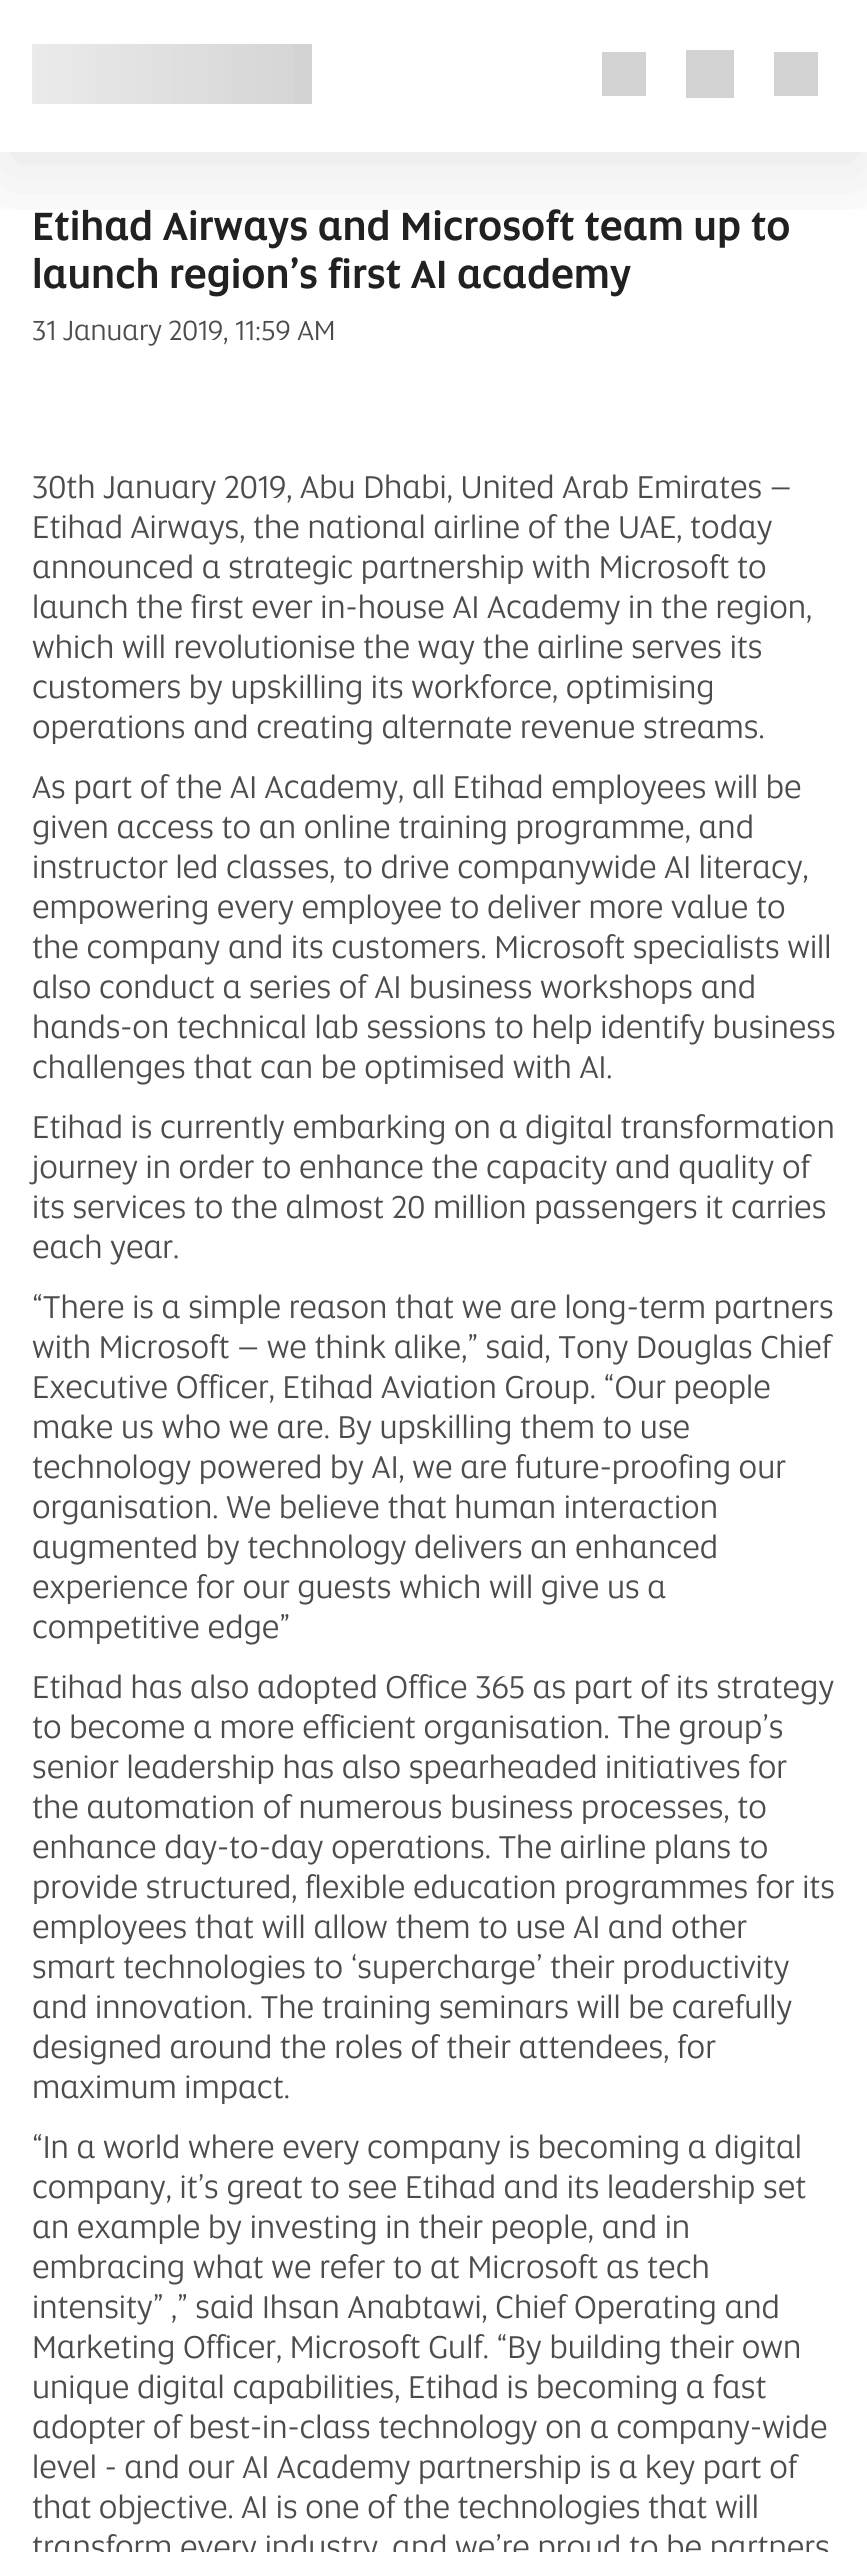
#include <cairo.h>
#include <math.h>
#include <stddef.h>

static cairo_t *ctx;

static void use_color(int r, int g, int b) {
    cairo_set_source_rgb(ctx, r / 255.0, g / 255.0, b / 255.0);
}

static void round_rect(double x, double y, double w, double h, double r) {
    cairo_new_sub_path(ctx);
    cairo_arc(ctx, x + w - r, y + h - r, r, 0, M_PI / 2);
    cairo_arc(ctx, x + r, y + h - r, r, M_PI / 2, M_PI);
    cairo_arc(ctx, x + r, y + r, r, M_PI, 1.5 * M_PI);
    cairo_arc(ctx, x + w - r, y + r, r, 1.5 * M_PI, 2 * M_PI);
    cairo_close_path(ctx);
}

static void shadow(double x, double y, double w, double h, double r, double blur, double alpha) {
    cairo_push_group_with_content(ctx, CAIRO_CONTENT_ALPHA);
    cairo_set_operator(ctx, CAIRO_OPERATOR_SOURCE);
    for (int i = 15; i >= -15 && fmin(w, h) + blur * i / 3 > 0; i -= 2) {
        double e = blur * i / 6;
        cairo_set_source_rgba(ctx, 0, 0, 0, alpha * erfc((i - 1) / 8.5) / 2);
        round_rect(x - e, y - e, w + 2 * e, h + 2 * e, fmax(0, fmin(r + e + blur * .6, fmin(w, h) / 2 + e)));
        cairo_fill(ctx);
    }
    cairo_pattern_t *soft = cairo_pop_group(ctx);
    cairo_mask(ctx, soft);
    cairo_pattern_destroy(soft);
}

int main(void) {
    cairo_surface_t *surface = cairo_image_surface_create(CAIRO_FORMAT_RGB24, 867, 2552);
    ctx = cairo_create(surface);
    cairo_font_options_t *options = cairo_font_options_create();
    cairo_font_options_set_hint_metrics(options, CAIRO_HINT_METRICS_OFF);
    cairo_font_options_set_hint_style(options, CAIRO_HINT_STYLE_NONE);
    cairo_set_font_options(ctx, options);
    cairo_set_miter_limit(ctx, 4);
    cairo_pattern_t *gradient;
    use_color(255, 255, 255);
    cairo_paint(ctx);
    cairo_save(ctx);
    cairo_rectangle(ctx, 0, 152, 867, 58);
    cairo_clip(ctx);
    use_color(0, 0, 0);
    shadow(0, 20, 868, 152, 0, 45, 0.1);
    cairo_restore(ctx);
    use_color(211, 211, 211);
    cairo_rectangle(ctx, 32, 44, 280, 60);
    cairo_fill(ctx);
    cairo_rectangle(ctx, 602, 52, 44, 44);
    cairo_fill(ctx);
    cairo_rectangle(ctx, 686, 50, 48, 48);
    cairo_fill(ctx);
    cairo_rectangle(ctx, 774, 52, 44, 44);
    cairo_fill(ctx);
    gradient = cairo_pattern_create_linear(-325, 100, 326, 100);
    cairo_pattern_add_color_stop_rgba(gradient, 0, 1, 1, 1, 0);
    cairo_pattern_add_color_stop_rgba(gradient, 0.5, 1, 1, 1, 0.6);
    cairo_pattern_add_color_stop_rgba(gradient, 1, 1, 1, 1, 0);
    cairo_set_source(ctx, gradient);
    cairo_pattern_destroy(gradient);
    cairo_rectangle(ctx, 32, 44, 261, 60);
    cairo_fill(ctx);
    cairo_select_font_face(ctx, "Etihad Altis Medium", CAIRO_FONT_SLANT_NORMAL, CAIRO_FONT_WEIGHT_NORMAL);
    cairo_set_font_size(ctx, 40);
    use_color(33, 33, 33);
    cairo_move_to(ctx, 32, 240);
    cairo_show_text(ctx, "Etihad Airways and Microsoft team up to");
    cairo_move_to(ctx, 32, 288);
    cairo_show_text(ctx, "launch region’s first AI academy");
    cairo_select_font_face(ctx, "Etihad Altis", CAIRO_FONT_SLANT_NORMAL, CAIRO_FONT_WEIGHT_NORMAL);
    cairo_set_font_size(ctx, 28);
    use_color(78, 76, 74);
    cairo_move_to(ctx, 32, 340);
    cairo_show_text(ctx, "31 January 2019, 11:59 AM");
    cairo_set_font_size(ctx, 32);
    cairo_move_to(ctx, 32, 498);
    cairo_show_text(ctx, "30th January 2019, Abu Dhabi, United Arab Emirates –");
    cairo_move_to(ctx, 32, 538);
    cairo_show_text(ctx, "Etihad Airways, the national airline of the UAE, today");
    cairo_move_to(ctx, 32, 578);
    cairo_show_text(ctx, "announced a strategic partnership with Microsoft to");
    cairo_move_to(ctx, 32, 618);
    cairo_show_text(ctx, "launch the first ever in-house AI Academy in the region,");
    cairo_move_to(ctx, 32, 658);
    cairo_show_text(ctx, "which will revolutionise the way the airline serves its");
    cairo_move_to(ctx, 32, 698);
    cairo_show_text(ctx, "customers by upskilling its workforce, optimising");
    cairo_move_to(ctx, 32, 738);
    cairo_show_text(ctx, "operations and creating alternate revenue streams.");
    cairo_move_to(ctx, 32, 798);
    cairo_show_text(ctx, "As part of the AI Academy, all Etihad employees will be");
    cairo_move_to(ctx, 32, 838);
    cairo_show_text(ctx, "given access to an online training programme, and");
    cairo_move_to(ctx, 32, 878);
    cairo_show_text(ctx, "instructor led classes, to drive companywide AI literacy,");
    cairo_move_to(ctx, 32, 918);
    cairo_show_text(ctx, "empowering every employee to deliver more value to");
    cairo_move_to(ctx, 32, 958);
    cairo_show_text(ctx, "the company and its customers. Microsoft specialists will");
    cairo_move_to(ctx, 32, 998);
    cairo_show_text(ctx, "also conduct a series of AI business workshops and");
    cairo_move_to(ctx, 32, 1038);
    cairo_show_text(ctx, "hands-on technical lab sessions to help identify business");
    cairo_move_to(ctx, 32, 1078);
    cairo_show_text(ctx, "challenges that can be optimised with AI.");
    cairo_move_to(ctx, 32, 1138);
    cairo_show_text(ctx, "Etihad is currently embarking on a digital transformation");
    cairo_move_to(ctx, 32, 1178);
    cairo_show_text(ctx, "journey in order to enhance the capacity and quality of");
    cairo_move_to(ctx, 32, 1218);
    cairo_show_text(ctx, "its services to the almost 20 million passengers it carries");
    cairo_move_to(ctx, 32, 1258);
    cairo_show_text(ctx, "each year.");
    cairo_move_to(ctx, 32, 1318);
    cairo_show_text(ctx, "“There is a simple reason that we are long-term partners");
    cairo_move_to(ctx, 32, 1358);
    cairo_show_text(ctx, "with Microsoft – we think alike,” said, Tony Douglas Chief");
    cairo_move_to(ctx, 32, 1398);
    cairo_show_text(ctx, "Executive Officer, Etihad Aviation Group. “Our people");
    cairo_move_to(ctx, 32, 1438);
    cairo_show_text(ctx, "make us who we are. By upskilling them to use");
    cairo_move_to(ctx, 32, 1478);
    cairo_show_text(ctx, "technology powered by AI, we are future-proofing our");
    cairo_move_to(ctx, 32, 1518);
    cairo_show_text(ctx, "organisation. We believe that human interaction");
    cairo_move_to(ctx, 32, 1558);
    cairo_show_text(ctx, "augmented by technology delivers an enhanced");
    cairo_move_to(ctx, 32, 1598);
    cairo_show_text(ctx, "experience for our guests which will give us a");
    cairo_move_to(ctx, 32, 1638);
    cairo_show_text(ctx, "competitive edge”");
    cairo_move_to(ctx, 32, 1698);
    cairo_show_text(ctx, "Etihad has also adopted Office 365 as part of its strategy");
    cairo_move_to(ctx, 32, 1738);
    cairo_show_text(ctx, "to become a more efficient organisation. The group’s");
    cairo_move_to(ctx, 32, 1778);
    cairo_show_text(ctx, "senior leadership has also spearheaded initiatives for");
    cairo_move_to(ctx, 32, 1818);
    cairo_show_text(ctx, "the automation of numerous business processes, to");
    cairo_move_to(ctx, 32, 1858);
    cairo_show_text(ctx, "enhance day-to-day operations. The airline plans to");
    cairo_move_to(ctx, 32, 1898);
    cairo_show_text(ctx, "provide structured, flexible education programmes for its");
    cairo_move_to(ctx, 32, 1938);
    cairo_show_text(ctx, "employees that will allow them to use AI and other");
    cairo_move_to(ctx, 32, 1978);
    cairo_show_text(ctx, "smart technologies to ‘supercharge’ their productivity");
    cairo_move_to(ctx, 32, 2018);
    cairo_show_text(ctx, "and innovation. The training seminars will be carefully");
    cairo_move_to(ctx, 32, 2058);
    cairo_show_text(ctx, "designed around the roles of their attendees, for");
    cairo_move_to(ctx, 32, 2098);
    cairo_show_text(ctx, "maximum impact.");
    cairo_move_to(ctx, 32, 2158);
    cairo_show_text(ctx, "“In a world where every company is becoming a digital");
    cairo_move_to(ctx, 32, 2198);
    cairo_show_text(ctx, "company, it’s great to see Etihad and its leadership set");
    cairo_move_to(ctx, 32, 2238);
    cairo_show_text(ctx, "an example by investing in their people, and in");
    cairo_move_to(ctx, 32, 2278);
    cairo_show_text(ctx, "embracing what we refer to at Microsoft as tech");
    cairo_move_to(ctx, 32, 2318);
    cairo_show_text(ctx, "intensity” ,” said Ihsan Anabtawi, Chief Operating and");
    cairo_move_to(ctx, 32, 2358);
    cairo_show_text(ctx, "Marketing Officer, Microsoft Gulf. “By building their own");
    cairo_move_to(ctx, 32, 2398);
    cairo_show_text(ctx, "unique digital capabilities, Etihad is becoming a fast");
    cairo_move_to(ctx, 32, 2438);
    cairo_show_text(ctx, "adopter of best-in-class technology on a company-wide");
    cairo_move_to(ctx, 32, 2478);
    cairo_show_text(ctx, "level - and our AI Academy partnership is a key part of");
    cairo_move_to(ctx, 32, 2518);
    cairo_show_text(ctx, "that objective. AI is one of the technologies that will");
    cairo_move_to(ctx, 32, 2558);
    cairo_show_text(ctx, "transform every industry, and we’re proud to be partners");
    cairo_surface_write_to_png(surface, "result.png");
    cairo_font_options_destroy(options);
    cairo_destroy(ctx);
    cairo_surface_destroy(surface);
    return 0;
}
